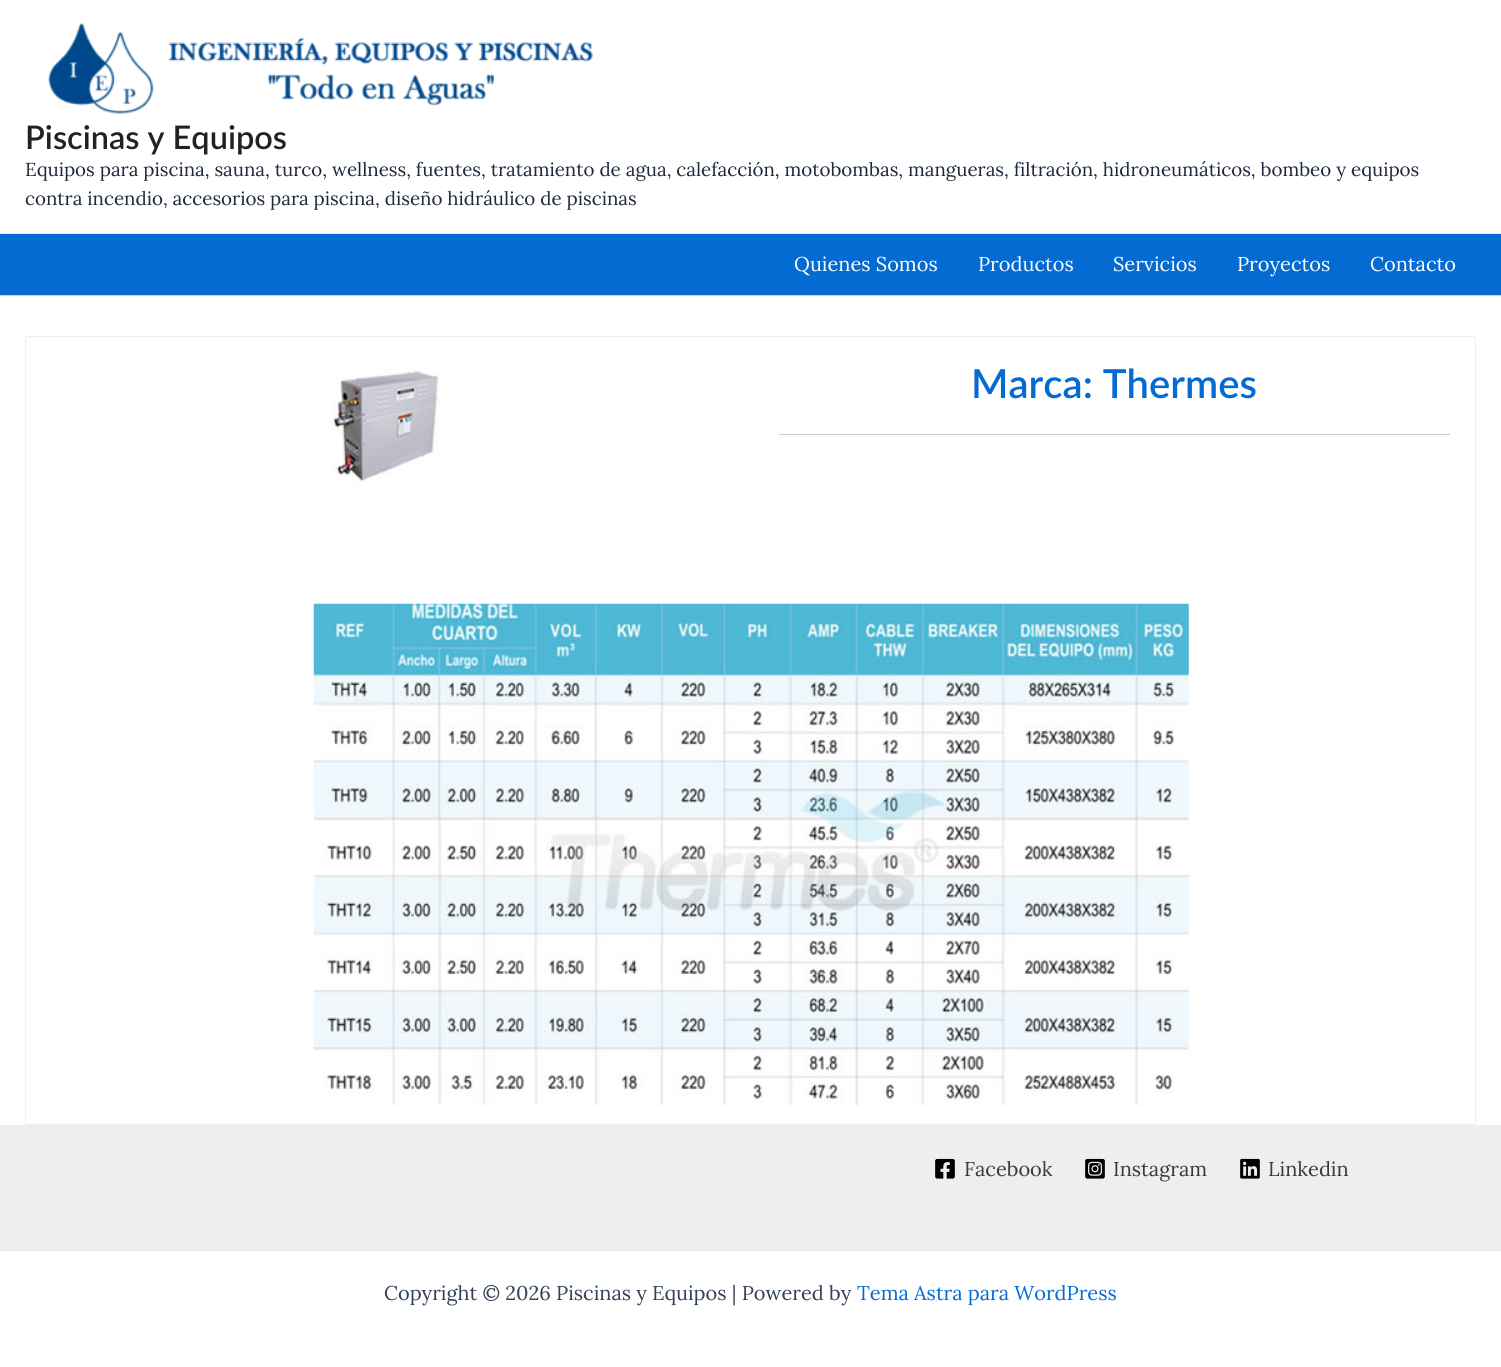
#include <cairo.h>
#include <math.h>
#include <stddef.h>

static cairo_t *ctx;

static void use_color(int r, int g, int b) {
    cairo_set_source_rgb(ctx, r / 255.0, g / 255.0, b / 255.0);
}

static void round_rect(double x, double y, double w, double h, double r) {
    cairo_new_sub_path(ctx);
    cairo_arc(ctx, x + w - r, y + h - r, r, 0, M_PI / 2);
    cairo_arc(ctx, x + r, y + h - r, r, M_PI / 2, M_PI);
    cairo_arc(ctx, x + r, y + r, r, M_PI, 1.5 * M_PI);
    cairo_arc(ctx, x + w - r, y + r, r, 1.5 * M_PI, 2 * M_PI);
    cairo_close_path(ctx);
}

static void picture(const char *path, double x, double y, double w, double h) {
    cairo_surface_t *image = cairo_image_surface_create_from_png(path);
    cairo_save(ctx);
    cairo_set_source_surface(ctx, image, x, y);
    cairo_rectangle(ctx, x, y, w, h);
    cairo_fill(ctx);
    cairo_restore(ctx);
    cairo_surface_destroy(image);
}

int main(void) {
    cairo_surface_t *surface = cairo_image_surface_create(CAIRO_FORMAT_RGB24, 1501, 1367);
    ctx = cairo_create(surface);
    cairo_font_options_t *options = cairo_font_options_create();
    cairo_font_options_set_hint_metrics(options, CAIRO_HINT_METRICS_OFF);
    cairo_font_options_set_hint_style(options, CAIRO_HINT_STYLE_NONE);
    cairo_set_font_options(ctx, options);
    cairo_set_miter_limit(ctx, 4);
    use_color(255, 255, 255);
    cairo_paint(ctx);
    use_color(234, 234, 234);
    cairo_rectangle(ctx, 0, 233, 1501, 1);
    cairo_fill(ctx);
    picture("img1.png", 48, 23, 545, 91);
    cairo_select_font_face(ctx, "Lato SemiBold", CAIRO_FONT_SLANT_NORMAL, CAIRO_FONT_WEIGHT_NORMAL);
    cairo_set_font_size(ctx, 32.5);
    use_color(34, 34, 34);
    cairo_move_to(ctx, 25, 149);
    cairo_show_text(ctx, "Piscinas y Equipos");
    cairo_select_font_face(ctx, "Lora", CAIRO_FONT_SLANT_NORMAL, CAIRO_FONT_WEIGHT_NORMAL);
    cairo_set_font_size(ctx, 18.75);
    use_color(30, 41, 59);
    cairo_move_to(ctx, 25, 176);
    cairo_show_text(ctx, "Equipos para piscina, sauna, turco, wellness, fuentes, tratamiento de agua, calefacción, motobombas, mangueras, filtración, hidroneumáticos, bombeo y equipos");
    cairo_move_to(ctx, 25, 205);
    cairo_show_text(ctx, "contra incendio, accesorios para piscina, diseño hidráulico de piscinas");
    use_color(4, 107, 210);
    cairo_rectangle(ctx, 0, 234, 1501, 61);
    cairo_fill(ctx);
    use_color(203, 213, 225);
    cairo_rectangle(ctx, 0, 295, 1501, 1);
    cairo_fill(ctx);
    cairo_set_font_size(ctx, 20);
    use_color(255, 255, 255);
    cairo_move_to(ctx, 794, 271);
    cairo_show_text(ctx, "Quienes Somos");
    cairo_move_to(ctx, 978, 271);
    cairo_show_text(ctx, "Productos");
    cairo_move_to(ctx, 1113, 271);
    cairo_show_text(ctx, "Servicios");
    cairo_move_to(ctx, 1237, 271);
    cairo_show_text(ctx, "Proyectos");
    cairo_move_to(ctx, 1370, 271);
    cairo_show_text(ctx, "Contacto");
    round_rect(25.5, 336.5, 1450, 788, 2);
    use_color(238, 238, 238);
    cairo_set_line_width(ctx, 1);
    cairo_stroke(ctx);
    picture("img2.png", 332, 368, 108, 118);
    cairo_select_font_face(ctx, "Lato SemiBold", CAIRO_FONT_SLANT_NORMAL, CAIRO_FONT_WEIGHT_NORMAL);
    cairo_set_font_size(ctx, 40);
    use_color(4, 107, 210);
    cairo_move_to(ctx, 971, 398);
    cairo_show_text(ctx, "Marca: Thermes");
    use_color(204, 204, 204);
    cairo_rectangle(ctx, 779, 434, 671, 1);
    cairo_fill(ctx);
    picture("img3.png", 313, 603, 876, 502);
    use_color(238, 238, 238);
    cairo_rectangle(ctx, 0, 1125, 1501, 125);
    cairo_fill(ctx);
    picture("img4.png", 935, 1158, 20, 21);
    cairo_select_font_face(ctx, "Lora", CAIRO_FONT_SLANT_NORMAL, CAIRO_FONT_WEIGHT_NORMAL);
    cairo_set_font_size(ctx, 20);
    use_color(58, 58, 58);
    cairo_move_to(ctx, 964, 1176);
    cairo_show_text(ctx, "Facebook");
    picture("img5.png", 1085, 1158, 20, 21);
    cairo_move_to(ctx, 1113, 1176);
    cairo_show_text(ctx, "Instagram");
    picture("img6.png", 1240, 1158, 20, 21);
    cairo_move_to(ctx, 1268, 1176);
    cairo_show_text(ctx, "Linkedin");
    use_color(226, 232, 240);
    cairo_rectangle(ctx, 0, 1250, 1501, 1);
    cairo_fill(ctx);
    use_color(51, 65, 85);
    cairo_move_to(ctx, 384, 1300);
    cairo_show_text(ctx, "Copyright © 2026 Piscinas y Equipos | Powered by");
    use_color(4, 107, 210);
    cairo_move_to(ctx, 857, 1300);
    cairo_show_text(ctx, "Tema Astra para WordPress");
    cairo_surface_write_to_png(surface, "result.png");
    cairo_font_options_destroy(options);
    cairo_destroy(ctx);
    cairo_surface_destroy(surface);
    return 0;
}
